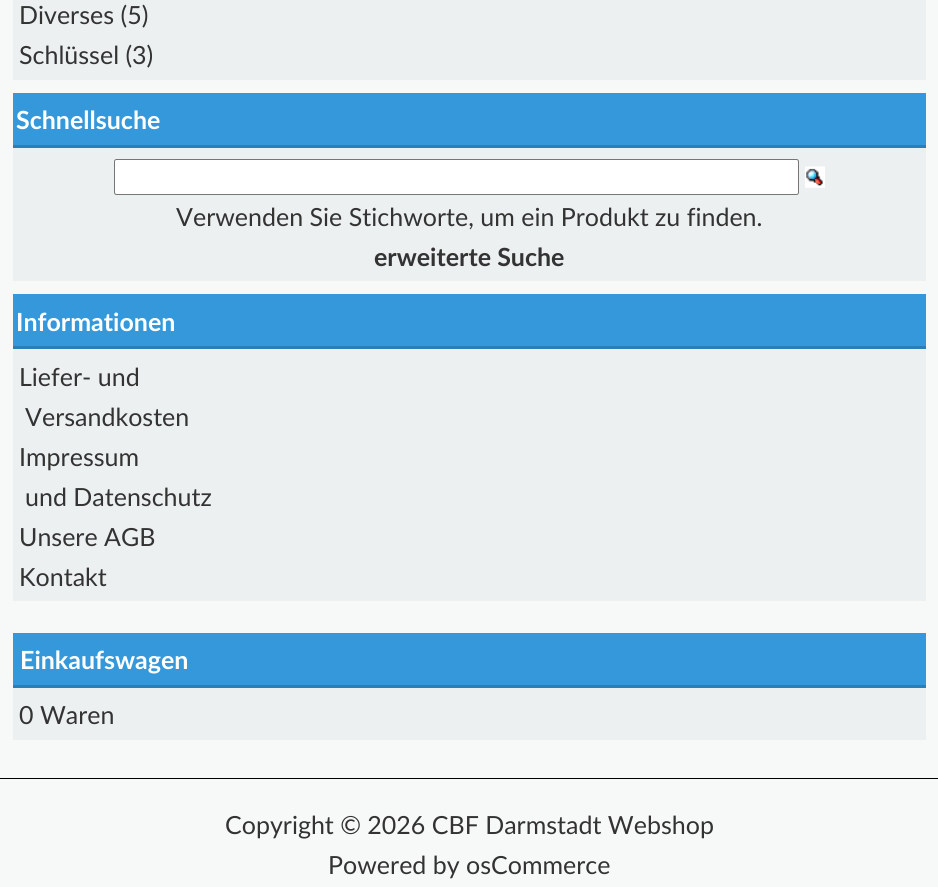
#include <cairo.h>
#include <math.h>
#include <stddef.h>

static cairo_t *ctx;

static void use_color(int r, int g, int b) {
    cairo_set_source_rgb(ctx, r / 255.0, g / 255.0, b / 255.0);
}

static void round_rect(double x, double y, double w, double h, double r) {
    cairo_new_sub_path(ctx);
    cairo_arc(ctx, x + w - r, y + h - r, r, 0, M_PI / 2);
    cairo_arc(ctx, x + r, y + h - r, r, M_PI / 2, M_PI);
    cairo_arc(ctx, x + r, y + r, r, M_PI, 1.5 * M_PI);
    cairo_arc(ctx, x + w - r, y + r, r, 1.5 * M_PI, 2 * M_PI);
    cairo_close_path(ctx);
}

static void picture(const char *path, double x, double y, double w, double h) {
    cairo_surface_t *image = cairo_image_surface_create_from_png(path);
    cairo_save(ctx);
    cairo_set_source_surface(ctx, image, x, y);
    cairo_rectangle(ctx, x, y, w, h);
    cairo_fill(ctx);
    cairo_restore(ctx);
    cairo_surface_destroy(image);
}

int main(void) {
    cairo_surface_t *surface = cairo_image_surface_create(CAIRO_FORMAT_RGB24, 938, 887);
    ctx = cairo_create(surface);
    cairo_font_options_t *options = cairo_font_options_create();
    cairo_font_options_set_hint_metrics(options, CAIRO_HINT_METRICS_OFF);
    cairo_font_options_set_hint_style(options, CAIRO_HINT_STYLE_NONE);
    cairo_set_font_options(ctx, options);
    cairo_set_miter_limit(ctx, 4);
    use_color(247, 249, 249);
    cairo_paint(ctx);
    use_color(236, 240, 241);
    cairo_rectangle(ctx, 13, 0, 913, 80);
    cairo_fill(ctx);
    cairo_select_font_face(ctx, "Lato", CAIRO_FONT_SLANT_NORMAL, CAIRO_FONT_WEIGHT_NORMAL);
    cairo_set_font_size(ctx, 25);
    use_color(51, 51, 51);
    cairo_move_to(ctx, 19, 24);
    cairo_show_text(ctx, "Diverses (5)");
    cairo_move_to(ctx, 19, 64);
    cairo_show_text(ctx, "Schlüssel (3)");
    use_color(236, 240, 241);
    cairo_rectangle(ctx, 13, 148, 913, 133);
    cairo_fill(ctx);
    use_color(52, 152, 219);
    cairo_rectangle(ctx, 13, 93, 913, 52);
    cairo_fill(ctx);
    use_color(41, 128, 185);
    cairo_rectangle(ctx, 13, 145, 913, 3);
    cairo_fill(ctx);
    cairo_select_font_face(ctx, "Lato", CAIRO_FONT_SLANT_NORMAL, CAIRO_FONT_WEIGHT_BOLD);
    use_color(255, 255, 255);
    cairo_move_to(ctx, 16, 129);
    cairo_show_text(ctx, "Schnellsuche");
    round_rect(114.5, 159.5, 684, 35, 2);
    cairo_fill_preserve(ctx);
    use_color(118, 118, 118);
    cairo_set_line_width(ctx, 1);
    cairo_stroke(ctx);
    picture("img1.png", 805, 166, 20, 22);
    cairo_select_font_face(ctx, "Lato", CAIRO_FONT_SLANT_NORMAL, CAIRO_FONT_WEIGHT_NORMAL);
    use_color(51, 51, 51);
    cairo_move_to(ctx, 176, 226);
    cairo_show_text(ctx, "Verwenden Sie Stichworte, um ein Produkt zu finden.");
    cairo_select_font_face(ctx, "Lato", CAIRO_FONT_SLANT_NORMAL, CAIRO_FONT_WEIGHT_BOLD);
    cairo_move_to(ctx, 374, 266);
    cairo_show_text(ctx, "erweiterte Suche");
    use_color(236, 240, 241);
    cairo_rectangle(ctx, 13, 349, 913, 252);
    cairo_fill(ctx);
    use_color(52, 152, 219);
    cairo_rectangle(ctx, 13, 294, 913, 52);
    cairo_fill(ctx);
    use_color(41, 128, 185);
    cairo_rectangle(ctx, 13, 346, 913, 3);
    cairo_fill(ctx);
    use_color(255, 255, 255);
    cairo_move_to(ctx, 16, 331);
    cairo_show_text(ctx, "Informationen");
    cairo_select_font_face(ctx, "Lato", CAIRO_FONT_SLANT_NORMAL, CAIRO_FONT_WEIGHT_NORMAL);
    use_color(51, 51, 51);
    cairo_move_to(ctx, 19, 386);
    cairo_show_text(ctx, "Liefer- und");
    cairo_move_to(ctx, 25, 426);
    cairo_show_text(ctx, "Versandkosten");
    cairo_move_to(ctx, 19, 466);
    cairo_show_text(ctx, "Impressum");
    cairo_move_to(ctx, 25, 506);
    cairo_show_text(ctx, "und Datenschutz");
    cairo_move_to(ctx, 19, 546);
    cairo_show_text(ctx, "Unsere AGB");
    cairo_move_to(ctx, 19, 586);
    cairo_show_text(ctx, "Kontakt");
    use_color(236, 240, 241);
    cairo_rectangle(ctx, 13, 688, 913, 52);
    cairo_fill(ctx);
    use_color(52, 152, 219);
    cairo_rectangle(ctx, 13, 633, 913, 52);
    cairo_fill(ctx);
    use_color(41, 128, 185);
    cairo_rectangle(ctx, 13, 685, 913, 3);
    cairo_fill(ctx);
    cairo_select_font_face(ctx, "Lato", CAIRO_FONT_SLANT_NORMAL, CAIRO_FONT_WEIGHT_BOLD);
    use_color(255, 255, 255);
    cairo_move_to(ctx, 20, 669);
    cairo_show_text(ctx, "Einkaufswagen");
    cairo_select_font_face(ctx, "Lato", CAIRO_FONT_SLANT_NORMAL, CAIRO_FONT_WEIGHT_NORMAL);
    use_color(51, 51, 51);
    cairo_move_to(ctx, 19, 724);
    cairo_show_text(ctx, "0 Waren");
    use_color(0, 0, 0);
    cairo_rectangle(ctx, 0, 778, 938, 1);
    cairo_fill(ctx);
    use_color(51, 51, 51);
    cairo_move_to(ctx, 225, 834);
    cairo_show_text(ctx, "Copyright © 2026 CBF Darmstadt Webshop");
    cairo_move_to(ctx, 328, 874);
    cairo_show_text(ctx, "Powered by osCommerce");
    cairo_surface_write_to_png(surface, "result.png");
    cairo_font_options_destroy(options);
    cairo_destroy(ctx);
    cairo_surface_destroy(surface);
    return 0;
}
